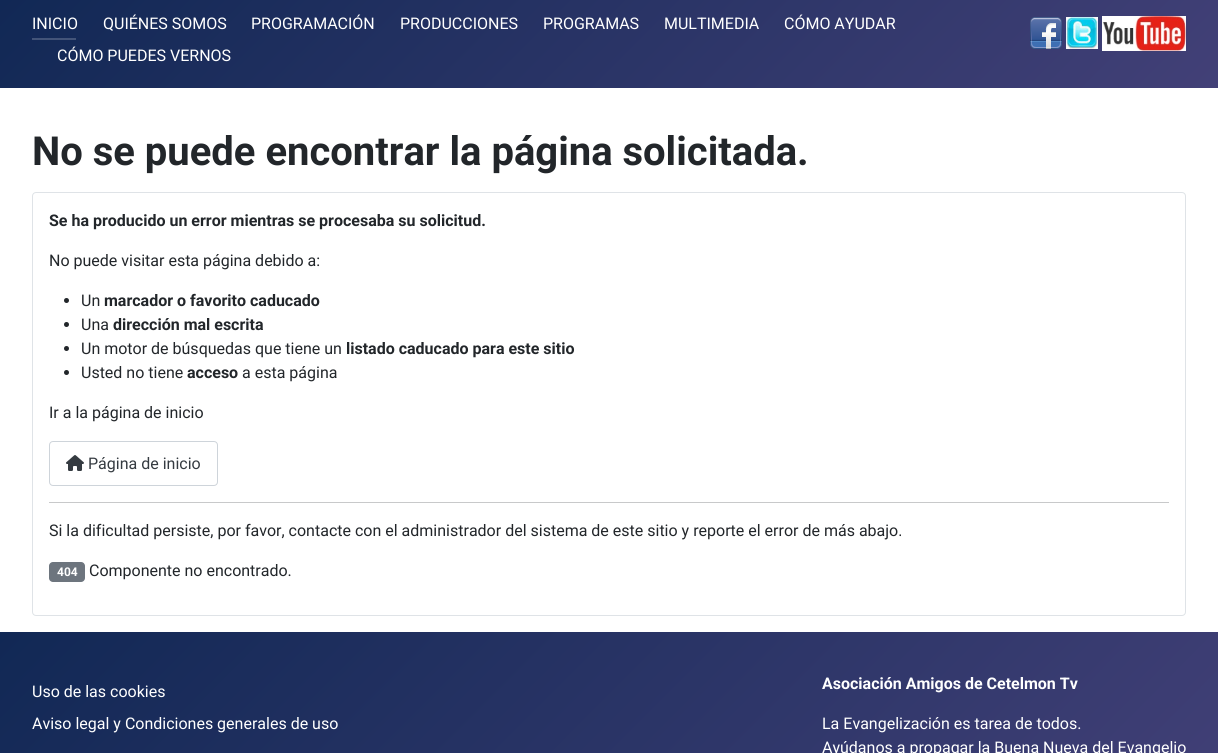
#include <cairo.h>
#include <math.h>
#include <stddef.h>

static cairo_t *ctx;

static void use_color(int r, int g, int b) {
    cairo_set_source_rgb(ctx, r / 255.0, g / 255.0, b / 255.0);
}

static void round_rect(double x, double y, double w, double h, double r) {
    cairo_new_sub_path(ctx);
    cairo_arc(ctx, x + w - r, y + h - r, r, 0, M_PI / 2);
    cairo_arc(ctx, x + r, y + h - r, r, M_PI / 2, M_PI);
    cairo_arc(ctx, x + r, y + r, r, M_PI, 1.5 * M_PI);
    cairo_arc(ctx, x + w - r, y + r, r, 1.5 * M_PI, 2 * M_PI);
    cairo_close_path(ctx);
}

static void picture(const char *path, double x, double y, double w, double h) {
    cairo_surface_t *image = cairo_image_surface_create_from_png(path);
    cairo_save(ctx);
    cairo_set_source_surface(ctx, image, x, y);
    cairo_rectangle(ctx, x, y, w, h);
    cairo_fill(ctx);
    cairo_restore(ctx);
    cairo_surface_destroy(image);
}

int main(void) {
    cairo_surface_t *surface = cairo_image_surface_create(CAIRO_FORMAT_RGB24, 1218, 753);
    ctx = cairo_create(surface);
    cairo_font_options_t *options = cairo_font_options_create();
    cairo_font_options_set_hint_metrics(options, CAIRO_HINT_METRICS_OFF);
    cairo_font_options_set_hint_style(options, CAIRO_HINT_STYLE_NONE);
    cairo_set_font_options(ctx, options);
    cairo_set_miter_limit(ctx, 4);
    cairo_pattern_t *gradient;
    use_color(255, 255, 255);
    cairo_paint(ctx);
    gradient = cairo_pattern_create_linear(283, -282, 936, 370);
    cairo_pattern_add_color_stop_rgba(gradient, 0, 0.067, 0.157, 0.333, 1);
    cairo_pattern_add_color_stop_rgba(gradient, 1, 0.259, 0.251, 0.467, 1);
    cairo_set_source(ctx, gradient);
    cairo_pattern_destroy(gradient);
    cairo_rectangle(ctx, 0, 0, 1218, 88);
    cairo_fill(ctx);
    cairo_select_font_face(ctx, "Roboto", CAIRO_FONT_SLANT_NORMAL, CAIRO_FONT_WEIGHT_NORMAL);
    cairo_set_font_size(ctx, 16);
    use_color(255, 255, 255);
    cairo_move_to(ctx, 32, 29);
    cairo_show_text(ctx, "INICIO");
    use_color(67, 84, 121);
    cairo_rectangle(ctx, 32, 38, 44, 2);
    cairo_fill(ctx);
    use_color(255, 255, 255);
    cairo_move_to(ctx, 103, 29);
    cairo_show_text(ctx, "QUIÉNES SOMOS");
    cairo_move_to(ctx, 251, 29);
    cairo_show_text(ctx, "PROGRAMACIÓN");
    cairo_move_to(ctx, 400, 29);
    cairo_show_text(ctx, "PRODUCCIONES");
    cairo_move_to(ctx, 543, 29);
    cairo_show_text(ctx, "PROGRAMAS");
    cairo_move_to(ctx, 664, 29);
    cairo_show_text(ctx, "MULTIMEDIA");
    cairo_move_to(ctx, 784, 29);
    cairo_show_text(ctx, "CÓMO AYUDAR");
    cairo_move_to(ctx, 57, 61);
    cairo_show_text(ctx, "CÓMO PUEDES VERNOS");
    picture("img1.png", 1030, 17, 32, 32);
    picture("img2.png", 1066, 17, 32, 32);
    picture("img3.png", 1102, 16, 84, 35);
    cairo_select_font_face(ctx, "Roboto", CAIRO_FONT_SLANT_NORMAL, CAIRO_FONT_WEIGHT_BOLD);
    cairo_set_font_size(ctx, 40);
    use_color(34, 38, 42);
    cairo_move_to(ctx, 32, 165);
    cairo_show_text(ctx, "No se puede encontrar la página solicitada.");
    round_rect(32.5, 192.5, 1153, 423, 3.5);
    use_color(223, 227, 231);
    cairo_set_line_width(ctx, 1);
    cairo_stroke(ctx);
    cairo_set_font_size(ctx, 16);
    use_color(34, 38, 42);
    cairo_move_to(ctx, 49, 226);
    cairo_show_text(ctx, "Se ha producido un error mientras se procesaba su solicitud.");
    cairo_select_font_face(ctx, "Roboto", CAIRO_FONT_SLANT_NORMAL, CAIRO_FONT_WEIGHT_NORMAL);
    cairo_move_to(ctx, 49, 266);
    cairo_show_text(ctx, "No puede visitar esta página debido a:");
    cairo_new_path(ctx);
    cairo_arc(ctx, 66.5, 300.5, 2.5, 0, 2 * M_PI);
    cairo_fill(ctx);
    cairo_move_to(ctx, 81, 306);
    cairo_show_text(ctx, "Un");
    cairo_select_font_face(ctx, "Roboto", CAIRO_FONT_SLANT_NORMAL, CAIRO_FONT_WEIGHT_BOLD);
    cairo_move_to(ctx, 104, 306);
    cairo_show_text(ctx, "marcador o favorito caducado");
    cairo_new_path(ctx);
    cairo_arc(ctx, 66.5, 324.5, 2.5, 0, 2 * M_PI);
    cairo_fill(ctx);
    cairo_select_font_face(ctx, "Roboto", CAIRO_FONT_SLANT_NORMAL, CAIRO_FONT_WEIGHT_NORMAL);
    cairo_move_to(ctx, 81, 330);
    cairo_show_text(ctx, "Una");
    cairo_select_font_face(ctx, "Roboto", CAIRO_FONT_SLANT_NORMAL, CAIRO_FONT_WEIGHT_BOLD);
    cairo_move_to(ctx, 113, 330);
    cairo_show_text(ctx, "dirección mal escrita");
    cairo_new_path(ctx);
    cairo_arc(ctx, 66.5, 348.5, 2.5, 0, 2 * M_PI);
    cairo_fill(ctx);
    cairo_select_font_face(ctx, "Roboto", CAIRO_FONT_SLANT_NORMAL, CAIRO_FONT_WEIGHT_NORMAL);
    cairo_move_to(ctx, 81, 354);
    cairo_show_text(ctx, "Un motor de búsquedas que tiene un");
    cairo_select_font_face(ctx, "Roboto", CAIRO_FONT_SLANT_NORMAL, CAIRO_FONT_WEIGHT_BOLD);
    cairo_move_to(ctx, 346, 354);
    cairo_show_text(ctx, "listado caducado para este sitio");
    cairo_new_path(ctx);
    cairo_arc(ctx, 66.5, 372.5, 2.5, 0, 2 * M_PI);
    cairo_fill(ctx);
    cairo_select_font_face(ctx, "Roboto", CAIRO_FONT_SLANT_NORMAL, CAIRO_FONT_WEIGHT_NORMAL);
    cairo_move_to(ctx, 81, 378);
    cairo_show_text(ctx, "Usted no tiene");
    cairo_select_font_face(ctx, "Roboto", CAIRO_FONT_SLANT_NORMAL, CAIRO_FONT_WEIGHT_BOLD);
    cairo_move_to(ctx, 187, 378);
    cairo_show_text(ctx, "acceso");
    cairo_select_font_face(ctx, "Roboto", CAIRO_FONT_SLANT_NORMAL, CAIRO_FONT_WEIGHT_NORMAL);
    cairo_move_to(ctx, 242, 378);
    cairo_show_text(ctx, "a esta página");
    cairo_move_to(ctx, 49, 418);
    cairo_show_text(ctx, "Ir a la página de inicio");
    round_rect(49.5, 441.5, 168, 44, 3.5);
    use_color(206, 212, 218);
    cairo_stroke(ctx);
    picture("img4.png", 66, 455, 18, 16);
    use_color(53, 59, 65);
    cairo_move_to(ctx, 88, 469);
    cairo_show_text(ctx, "Página de inicio");
    use_color(200, 201, 202);
    cairo_rectangle(ctx, 49, 502, 1120, 1);
    cairo_fill(ctx);
    use_color(34, 38, 42);
    cairo_move_to(ctx, 49, 536);
    cairo_show_text(ctx, "Si la dificultad persiste, por favor, contacte con el administrador del sistema de este sitio y reporte el error de más abajo.");
    use_color(109, 117, 126);
    round_rect(49, 562, 36, 20, 4);
    cairo_fill(ctx);
    cairo_select_font_face(ctx, "Roboto", CAIRO_FONT_SLANT_NORMAL, CAIRO_FONT_WEIGHT_BOLD);
    cairo_set_font_size(ctx, 12);
    use_color(255, 255, 255);
    cairo_move_to(ctx, 57, 576);
    cairo_show_text(ctx, "404");
    cairo_select_font_face(ctx, "Roboto", CAIRO_FONT_SLANT_NORMAL, CAIRO_FONT_WEIGHT_NORMAL);
    cairo_set_font_size(ctx, 16);
    use_color(34, 38, 42);
    cairo_move_to(ctx, 89, 576);
    cairo_show_text(ctx, "Componente no encontrado.");
    gradient = cairo_pattern_create_linear(258, 374, 960, 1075);
    cairo_pattern_add_color_stop_rgba(gradient, 0, 0.067, 0.157, 0.333, 1);
    cairo_pattern_add_color_stop_rgba(gradient, 1, 0.259, 0.251, 0.467, 1);
    cairo_set_source(ctx, gradient);
    cairo_pattern_destroy(gradient);
    cairo_rectangle(ctx, 0, 632, 1218, 121);
    cairo_fill(ctx);
    use_color(255, 255, 255);
    cairo_move_to(ctx, 32, 697);
    cairo_show_text(ctx, "Uso de las cookies");
    cairo_move_to(ctx, 32, 729);
    cairo_show_text(ctx, "Aviso legal y Condiciones generales de uso");
    cairo_select_font_face(ctx, "Roboto", CAIRO_FONT_SLANT_NORMAL, CAIRO_FONT_WEIGHT_BOLD);
    cairo_move_to(ctx, 822, 689);
    cairo_show_text(ctx, "Asociación Amigos de Cetelmon Tv");
    cairo_select_font_face(ctx, "Roboto", CAIRO_FONT_SLANT_NORMAL, CAIRO_FONT_WEIGHT_NORMAL);
    cairo_move_to(ctx, 822, 729);
    cairo_show_text(ctx, "La Evangelización es tarea de todos.");
    cairo_move_to(ctx, 822, 753);
    cairo_show_text(ctx, "Ayúdanos a propagar la Buena Nueva del Evangelio");
    cairo_surface_write_to_png(surface, "result.png");
    cairo_font_options_destroy(options);
    cairo_destroy(ctx);
    cairo_surface_destroy(surface);
    return 0;
}
